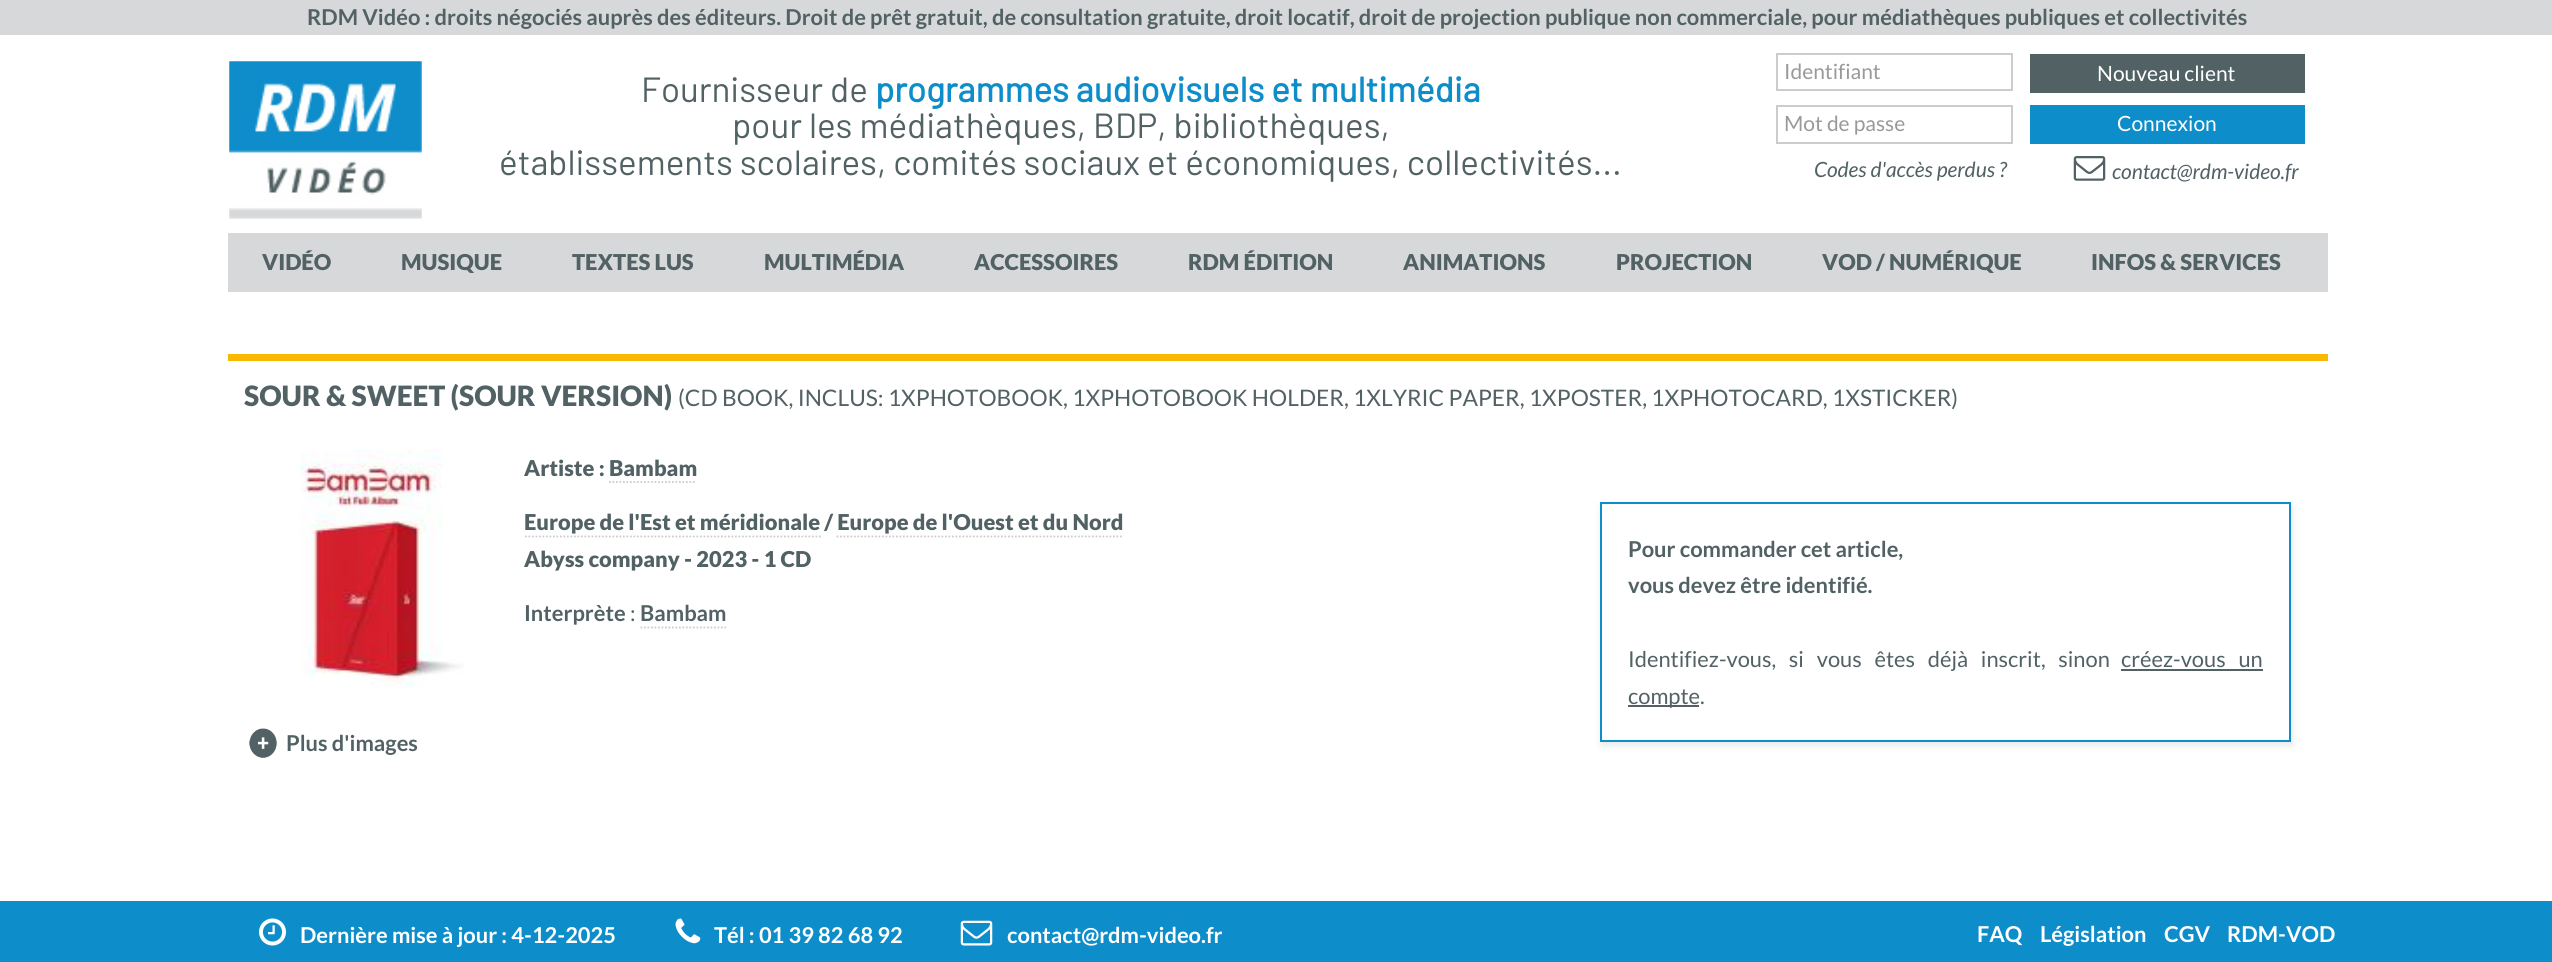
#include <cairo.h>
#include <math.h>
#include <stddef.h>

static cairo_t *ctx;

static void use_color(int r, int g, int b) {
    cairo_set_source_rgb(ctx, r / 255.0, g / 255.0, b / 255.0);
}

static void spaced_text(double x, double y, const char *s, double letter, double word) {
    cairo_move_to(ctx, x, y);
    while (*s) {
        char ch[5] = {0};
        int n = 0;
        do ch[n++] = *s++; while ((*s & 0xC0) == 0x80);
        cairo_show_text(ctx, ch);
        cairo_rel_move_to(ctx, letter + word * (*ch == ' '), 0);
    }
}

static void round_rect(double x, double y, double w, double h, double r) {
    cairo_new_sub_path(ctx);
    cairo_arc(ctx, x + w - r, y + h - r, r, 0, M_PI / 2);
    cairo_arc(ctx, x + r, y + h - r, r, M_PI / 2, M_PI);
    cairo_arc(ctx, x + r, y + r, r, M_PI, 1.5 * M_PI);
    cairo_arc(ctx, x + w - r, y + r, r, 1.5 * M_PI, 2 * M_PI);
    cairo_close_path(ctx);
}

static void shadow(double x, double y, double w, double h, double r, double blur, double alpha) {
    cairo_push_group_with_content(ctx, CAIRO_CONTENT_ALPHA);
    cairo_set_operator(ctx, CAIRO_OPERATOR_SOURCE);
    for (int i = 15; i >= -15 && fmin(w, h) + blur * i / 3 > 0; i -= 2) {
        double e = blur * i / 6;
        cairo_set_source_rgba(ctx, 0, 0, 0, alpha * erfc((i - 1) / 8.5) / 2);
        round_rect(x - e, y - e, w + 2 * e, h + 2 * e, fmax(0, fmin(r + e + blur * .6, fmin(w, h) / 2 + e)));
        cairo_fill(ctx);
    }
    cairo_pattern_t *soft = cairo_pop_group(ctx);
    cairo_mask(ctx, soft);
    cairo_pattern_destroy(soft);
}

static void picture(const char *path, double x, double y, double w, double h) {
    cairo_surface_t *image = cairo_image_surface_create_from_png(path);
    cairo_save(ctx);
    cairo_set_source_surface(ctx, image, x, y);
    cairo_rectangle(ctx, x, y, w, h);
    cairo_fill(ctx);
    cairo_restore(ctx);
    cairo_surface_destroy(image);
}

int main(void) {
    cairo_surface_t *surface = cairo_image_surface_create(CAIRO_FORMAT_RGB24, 2552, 962);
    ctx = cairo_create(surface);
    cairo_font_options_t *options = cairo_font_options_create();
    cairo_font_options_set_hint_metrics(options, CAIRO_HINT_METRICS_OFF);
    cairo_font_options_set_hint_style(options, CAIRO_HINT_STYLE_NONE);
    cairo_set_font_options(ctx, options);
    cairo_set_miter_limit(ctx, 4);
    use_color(255, 255, 255);
    cairo_paint(ctx);
    use_color(215, 216, 217);
    cairo_rectangle(ctx, 0, 0, 2552, 35);
    cairo_fill(ctx);
    cairo_select_font_face(ctx, "Lato", CAIRO_FONT_SLANT_NORMAL, CAIRO_FONT_WEIGHT_BOLD);
    cairo_set_font_size(ctx, 21.88);
    use_color(81, 97, 100);
    cairo_move_to(ctx, 307, 25);
    cairo_show_text(ctx, "RDM Vidéo : droits négociés auprès des éditeurs. Droit de prêt gratuit, de consultation gratuite, droit locatif, droit de projection publique non commerciale, pour médiathèques publiques et collectivités");
    picture("img1.png", 229, 61, 193, 158);
    cairo_select_font_face(ctx, "Barlow", CAIRO_FONT_SLANT_NORMAL, CAIRO_FONT_WEIGHT_NORMAL);
    cairo_set_font_size(ctx, 35);
    cairo_move_to(ctx, 641, 102);
    cairo_show_text(ctx, "Fournisseur de");
    cairo_select_font_face(ctx, "Barlow", CAIRO_FONT_SLANT_NORMAL, CAIRO_FONT_WEIGHT_BOLD);
    use_color(14, 141, 203);
    cairo_move_to(ctx, 875, 102);
    cairo_show_text(ctx, "programmes audiovisuels et multimédia");
    cairo_select_font_face(ctx, "Barlow", CAIRO_FONT_SLANT_NORMAL, CAIRO_FONT_WEIGHT_NORMAL);
    use_color(81, 97, 100);
    cairo_move_to(ctx, 732, 138);
    cairo_show_text(ctx, "pour les médiathèques, BDP, bibliothèques,");
    cairo_move_to(ctx, 499, 175);
    cairo_show_text(ctx, "établissements scolaires, comités sociaux et économiques, collectivités...");
    cairo_rectangle(ctx, 1777, 54, 235, 36);
    use_color(204, 204, 204);
    cairo_stroke(ctx);
    cairo_select_font_face(ctx, "Lato", CAIRO_FONT_SLANT_NORMAL, CAIRO_FONT_WEIGHT_NORMAL);
    cairo_set_font_size(ctx, 21);
    use_color(153, 153, 153);
    cairo_move_to(ctx, 1784, 79);
    cairo_show_text(ctx, "Identifiant");
    cairo_rectangle(ctx, 1777, 106, 235, 37);
    use_color(204, 204, 204);
    cairo_stroke(ctx);
    use_color(153, 153, 153);
    cairo_move_to(ctx, 1784, 131);
    cairo_show_text(ctx, "Mot de passe");
    cairo_select_font_face(ctx, "Lato", CAIRO_FONT_SLANT_ITALIC, CAIRO_FONT_WEIGHT_NORMAL);
    use_color(81, 97, 100);
    cairo_move_to(ctx, 1814, 177);
    cairo_show_text(ctx, "Codes d'accès perdus ?");
    cairo_rectangle(ctx, 2030, 54, 275, 39);
    cairo_fill(ctx);
    cairo_select_font_face(ctx, "Lato", CAIRO_FONT_SLANT_NORMAL, CAIRO_FONT_WEIGHT_NORMAL);
    use_color(255, 255, 255);
    cairo_move_to(ctx, 2097, 81);
    cairo_show_text(ctx, "Nouveau client");
    use_color(14, 141, 203);
    cairo_rectangle(ctx, 2030, 105, 275, 39);
    cairo_fill(ctx);
    use_color(255, 255, 255);
    cairo_move_to(ctx, 2117, 131);
    cairo_show_text(ctx, "Connexion");
    picture("img2.png", 2073, 156, 33, 25);
    cairo_select_font_face(ctx, "Lato", CAIRO_FONT_SLANT_ITALIC, CAIRO_FONT_WEIGHT_NORMAL);
    use_color(81, 97, 100);
    cairo_move_to(ctx, 2112, 179);
    cairo_show_text(ctx, "contact@rdm-video.fr");
    use_color(215, 216, 217);
    cairo_rectangle(ctx, 228, 233, 2100, 59);
    cairo_fill(ctx);
    cairo_select_font_face(ctx, "Lato Black", CAIRO_FONT_SLANT_NORMAL, CAIRO_FONT_WEIGHT_NORMAL);
    cairo_set_font_size(ctx, 21.88);
    use_color(81, 97, 100);
    cairo_move_to(ctx, 262, 270);
    cairo_show_text(ctx, "VIDÉO");
    cairo_move_to(ctx, 401, 270);
    cairo_show_text(ctx, "MUSIQUE");
    cairo_move_to(ctx, 572, 270);
    cairo_show_text(ctx, "TEXTES LUS");
    cairo_move_to(ctx, 764, 270);
    cairo_show_text(ctx, "MULTIMÉDIA");
    cairo_move_to(ctx, 974, 270);
    cairo_show_text(ctx, "ACCESSOIRES");
    cairo_move_to(ctx, 1188, 270);
    cairo_show_text(ctx, "RDM ÉDITION");
    cairo_move_to(ctx, 1403, 270);
    cairo_show_text(ctx, "ANIMATIONS");
    cairo_move_to(ctx, 1616, 270);
    cairo_show_text(ctx, "PROJECTION");
    cairo_move_to(ctx, 1822, 270);
    cairo_show_text(ctx, "VOD / NUMÉRIQUE");
    cairo_move_to(ctx, 2091, 270);
    cairo_show_text(ctx, "INFOS & SERVICES");
    use_color(248, 185, 0);
    cairo_rectangle(ctx, 228, 354, 2100, 7);
    cairo_fill(ctx);
    cairo_set_font_size(ctx, 28);
    use_color(81, 97, 100);
    cairo_move_to(ctx, 244, 406);
    cairo_show_text(ctx, "SOUR & SWEET (SOUR VERSION)");
    cairo_select_font_face(ctx, "Lato", CAIRO_FONT_SLANT_NORMAL, CAIRO_FONT_WEIGHT_NORMAL);
    cairo_set_font_size(ctx, 22.75);
    cairo_move_to(ctx, 678, 406);
    cairo_show_text(ctx, "(CD BOOK, INCLUS: 1XPHOTOBOOK, 1XPHOTOBOOK HOLDER, 1XLYRIC PAPER, 1XPOSTER, 1XPHOTOCARD, 1XSTICKER)");
    cairo_select_font_face(ctx, "Lato Black", CAIRO_FONT_SLANT_NORMAL, CAIRO_FONT_WEIGHT_NORMAL);
    cairo_set_font_size(ctx, 21.88);
    cairo_move_to(ctx, 524, 476);
    cairo_show_text(ctx, "Artiste : Bambam");
    cairo_new_path(ctx);
    cairo_move_to(ctx, 609, 482);
    cairo_line_to(ctx, 696.5, 482);
    use_color(204, 204, 204);
    cairo_set_line_width(ctx, 1.8);
    cairo_set_dash(ctx, (double[]){1.75, 1.75}, 2, 0);
    cairo_stroke(ctx);
    use_color(81, 97, 100);
    cairo_move_to(ctx, 524, 530);
    cairo_show_text(ctx, "Europe de l'Est et méridionale / Europe de l'Ouest et du Nord");
    cairo_new_path(ctx);
    cairo_move_to(ctx, 525, 536.5);
    cairo_line_to(ctx, 821, 536.5);
    use_color(204, 204, 204);
    cairo_stroke(ctx);
    cairo_new_path(ctx);
    cairo_move_to(ctx, 836.5, 536.5);
    cairo_line_to(ctx, 1123.5, 536.5);
    cairo_stroke(ctx);
    use_color(81, 97, 100);
    cairo_move_to(ctx, 524, 567);
    cairo_show_text(ctx, "Abyss company - 2023 - 1 CD");
    cairo_select_font_face(ctx, "Lato", CAIRO_FONT_SLANT_NORMAL, CAIRO_FONT_WEIGHT_BOLD);
    cairo_move_to(ctx, 524, 621);
    cairo_show_text(ctx, "Interprète");
    cairo_select_font_face(ctx, "Lato", CAIRO_FONT_SLANT_NORMAL, CAIRO_FONT_WEIGHT_NORMAL);
    cairo_move_to(ctx, 630, 621);
    cairo_show_text(ctx, ":");
    cairo_select_font_face(ctx, "Lato", CAIRO_FONT_SLANT_NORMAL, CAIRO_FONT_WEIGHT_BOLD);
    cairo_move_to(ctx, 640, 621);
    cairo_show_text(ctx, "Bambam");
    cairo_new_path(ctx);
    cairo_move_to(ctx, 640.5, 627.5);
    cairo_line_to(ctx, 726, 627.5);
    use_color(204, 204, 204);
    cairo_stroke(ctx);
    use_color(225, 228, 228);
    shadow(1601, 506, 692, 240, 0, 3.5, 0.75);
    use_color(255, 255, 255);
    cairo_rectangle(ctx, 1601, 503, 689, 238);
    cairo_fill_preserve(ctx);
    use_color(14, 141, 203);
    cairo_set_line_width(ctx, 2);
    cairo_set_dash(ctx, NULL, 0, 0);
    cairo_stroke(ctx);
    use_color(81, 97, 100);
    cairo_move_to(ctx, 1628, 557);
    cairo_show_text(ctx, "Pour commander cet article,");
    cairo_move_to(ctx, 1628, 593);
    cairo_show_text(ctx, "vous devez être identifié.");
    cairo_select_font_face(ctx, "Lato", CAIRO_FONT_SLANT_NORMAL, CAIRO_FONT_WEIGHT_NORMAL);
    spaced_text(1628, 667, "Identifiez-vous, si vous êtes déjà inscrit, sinon", 0, 8.5);
    spaced_text(2121, 667, "créez-vous un", 0, 8.5);
    cairo_rectangle(ctx, 2121, 669, 142, 2);
    cairo_fill(ctx);
    cairo_rectangle(ctx, 1628, 705, 71, 2);
    cairo_fill(ctx);
    cairo_move_to(ctx, 1628, 704);
    cairo_show_text(ctx, "compte.");
    picture("img3.png", 300, 449, 164, 240);
    picture("img4.png", 249, 728, 29, 30);
    cairo_select_font_face(ctx, "Lato", CAIRO_FONT_SLANT_NORMAL, CAIRO_FONT_WEIGHT_BOLD);
    cairo_move_to(ctx, 286, 751);
    cairo_show_text(ctx, "Plus d'images");
    use_color(13, 141, 202);
    cairo_rectangle(ctx, 0, 901, 2552, 61);
    cairo_fill(ctx);
    picture("img5.png", 259, 918, 27, 28);
    use_color(255, 255, 255);
    cairo_move_to(ctx, 300, 943);
    cairo_show_text(ctx, "Dernière mise à jour : 4-12-2025");
    picture("img6.png", 675, 918, 26, 26);
    cairo_move_to(ctx, 714, 943);
    cairo_show_text(ctx, "Tél : 01 39 82 68 92");
    picture("img7.png", 960, 920, 33, 26);
    cairo_move_to(ctx, 1007, 943);
    cairo_show_text(ctx, "contact@rdm-video.fr");
    cairo_move_to(ctx, 1977, 942);
    cairo_show_text(ctx, "FAQ");
    cairo_move_to(ctx, 2040, 942);
    cairo_show_text(ctx, "Législation");
    cairo_move_to(ctx, 2164, 942);
    cairo_show_text(ctx, "CGV");
    cairo_move_to(ctx, 2227, 942);
    cairo_show_text(ctx, "RDM-VOD");
    cairo_surface_write_to_png(surface, "result.png");
    cairo_font_options_destroy(options);
    cairo_destroy(ctx);
    cairo_surface_destroy(surface);
    return 0;
}
